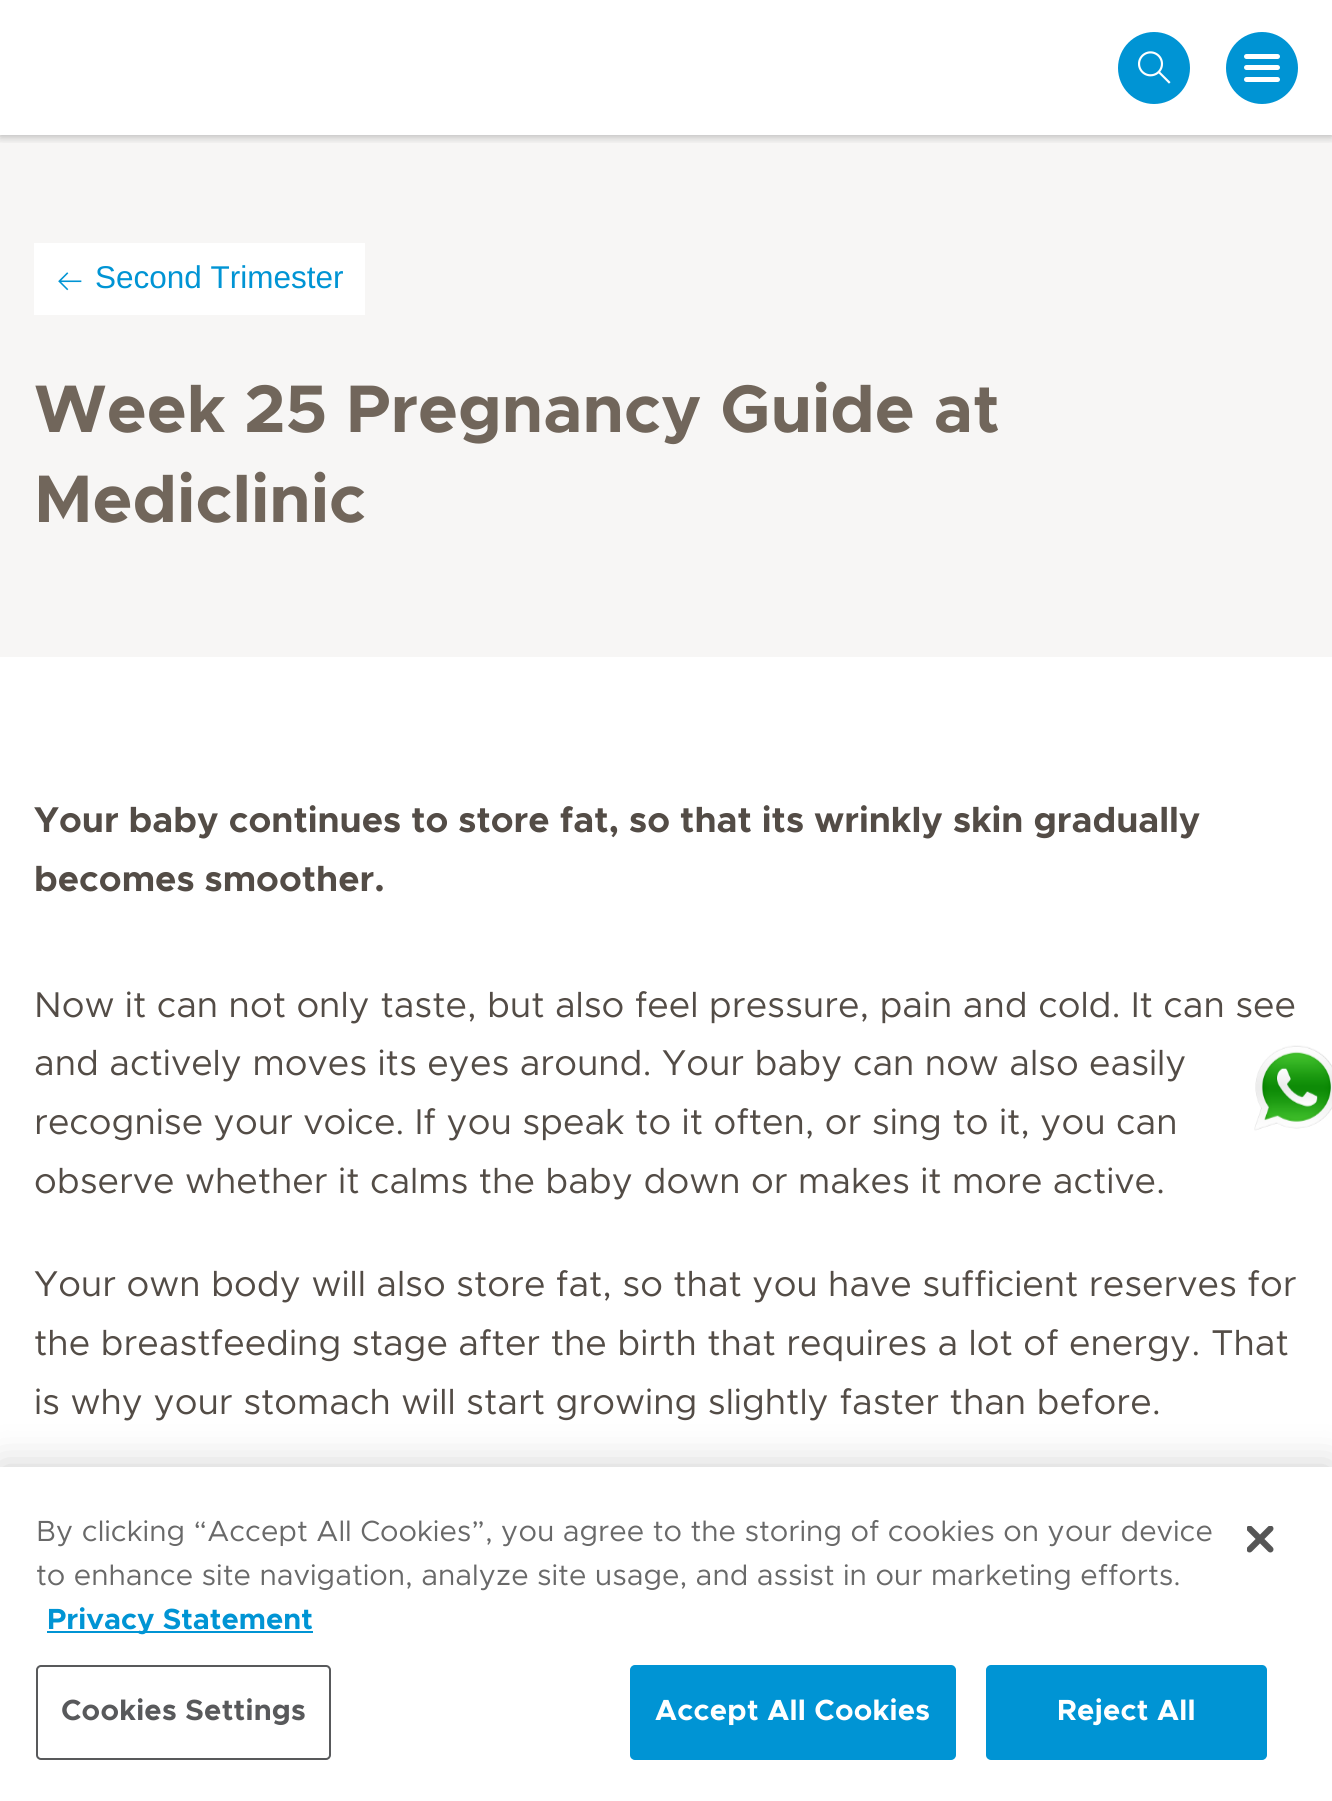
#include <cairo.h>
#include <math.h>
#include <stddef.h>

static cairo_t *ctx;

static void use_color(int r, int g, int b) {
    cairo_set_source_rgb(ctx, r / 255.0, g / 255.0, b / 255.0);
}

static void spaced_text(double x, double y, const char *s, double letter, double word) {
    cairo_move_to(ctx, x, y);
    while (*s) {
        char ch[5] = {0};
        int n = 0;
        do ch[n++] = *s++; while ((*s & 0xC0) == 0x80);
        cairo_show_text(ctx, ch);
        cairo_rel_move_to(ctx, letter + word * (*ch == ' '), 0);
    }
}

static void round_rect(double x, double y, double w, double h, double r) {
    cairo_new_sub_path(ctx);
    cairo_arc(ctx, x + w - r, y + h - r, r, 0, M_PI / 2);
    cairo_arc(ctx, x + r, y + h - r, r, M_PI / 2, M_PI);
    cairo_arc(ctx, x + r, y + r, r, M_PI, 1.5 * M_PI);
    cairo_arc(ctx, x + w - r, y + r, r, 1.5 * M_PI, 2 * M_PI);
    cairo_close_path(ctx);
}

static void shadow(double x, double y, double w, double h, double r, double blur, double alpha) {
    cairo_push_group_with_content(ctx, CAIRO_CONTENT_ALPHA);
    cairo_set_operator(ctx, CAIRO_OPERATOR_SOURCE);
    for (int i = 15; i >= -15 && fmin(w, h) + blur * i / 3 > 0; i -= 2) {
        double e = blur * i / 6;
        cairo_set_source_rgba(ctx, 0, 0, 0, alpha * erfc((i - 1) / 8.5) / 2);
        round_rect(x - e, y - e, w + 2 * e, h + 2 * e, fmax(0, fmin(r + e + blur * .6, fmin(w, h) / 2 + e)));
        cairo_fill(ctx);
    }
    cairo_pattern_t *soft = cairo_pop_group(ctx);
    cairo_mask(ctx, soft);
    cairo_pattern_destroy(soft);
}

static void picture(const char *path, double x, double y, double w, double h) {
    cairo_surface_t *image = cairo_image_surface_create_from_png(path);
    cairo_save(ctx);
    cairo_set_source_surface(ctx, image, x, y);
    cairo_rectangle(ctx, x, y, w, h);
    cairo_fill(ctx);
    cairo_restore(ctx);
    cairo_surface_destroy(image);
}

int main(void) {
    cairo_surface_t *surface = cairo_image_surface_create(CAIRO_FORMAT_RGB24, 1332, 1801);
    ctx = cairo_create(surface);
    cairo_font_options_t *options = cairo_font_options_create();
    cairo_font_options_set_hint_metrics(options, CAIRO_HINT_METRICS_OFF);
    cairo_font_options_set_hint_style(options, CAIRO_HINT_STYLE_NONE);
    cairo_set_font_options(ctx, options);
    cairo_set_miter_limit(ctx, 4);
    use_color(255, 255, 255);
    cairo_paint(ctx);
    use_color(247, 246, 245);
    cairo_rectangle(ctx, 0, 135, 1332, 522);
    cairo_fill(ctx);
    cairo_save(ctx);
    cairo_rectangle(ctx, 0, 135, 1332, 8);
    cairo_clip(ctx);
    use_color(0, 0, 0);
    shadow(0, 2, 1332, 135, 0, 4.5, 0.25);
    cairo_restore(ctx);
    use_color(0, 148, 212);
    cairo_arc(ctx, 1154, 68, 36, 0, 2 * M_PI);
    cairo_fill(ctx);
    picture("img1.png", 1138, 51, 33, 33);
    cairo_arc(ctx, 1262, 68, 36, 0, 2 * M_PI);
    cairo_fill(ctx);
    use_color(255, 255, 255);
    round_rect(1244, 54, 36, 5, 2.5);
    cairo_fill(ctx);
    round_rect(1244, 65, 36, 5, 2.5);
    cairo_fill(ctx);
    round_rect(1244, 77, 36, 5, 2.5);
    cairo_fill(ctx);
    cairo_rectangle(ctx, 34, 243, 331, 72);
    cairo_fill(ctx);
    picture("img2.png", 58, 272, 24, 19);
    cairo_select_font_face(ctx, "Liberation Sans", CAIRO_FONT_SLANT_NORMAL, CAIRO_FONT_WEIGHT_NORMAL);
    cairo_set_font_size(ctx, 31.5);
    use_color(0, 148, 212);
    cairo_move_to(ctx, 95, 288);
    cairo_show_text(ctx, "Second Trimester");
    cairo_select_font_face(ctx, "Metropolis", CAIRO_FONT_SLANT_NORMAL, CAIRO_FONT_WEIGHT_BOLD);
    cairo_set_font_size(ctx, 67.5);
    use_color(113, 102, 91);
    cairo_move_to(ctx, 34, 432);
    cairo_show_text(ctx, "Week 25 Pregnancy Guide at");
    cairo_move_to(ctx, 34, 522);
    cairo_show_text(ctx, "Mediclinic");
    cairo_set_font_size(ctx, 36);
    use_color(83, 76, 70);
    cairo_move_to(ctx, 34, 832);
    cairo_show_text(ctx, "Your baby continues to store fat, so that its wrinkly skin gradually");
    cairo_move_to(ctx, 34, 891);
    cairo_show_text(ctx, "becomes smoother.");
    cairo_select_font_face(ctx, "Metropolis", CAIRO_FONT_SLANT_NORMAL, CAIRO_FONT_WEIGHT_NORMAL);
    cairo_move_to(ctx, 34, 1017);
    cairo_show_text(ctx, "Now it can not only taste, but also feel pressure, pain and cold. It can see");
    cairo_move_to(ctx, 34, 1075);
    cairo_show_text(ctx, "and actively moves its eyes around. Your baby can now also easily");
    cairo_move_to(ctx, 34, 1134);
    cairo_show_text(ctx, "recognise your voice. If you speak to it often, or sing to it, you can");
    cairo_move_to(ctx, 34, 1193);
    cairo_show_text(ctx, "observe whether it calms the baby down or makes it more active.");
    cairo_move_to(ctx, 34, 1296);
    cairo_show_text(ctx, "Your own body will also store fat, so that you have sufficient reserves for");
    cairo_move_to(ctx, 34, 1355);
    cairo_show_text(ctx, "the breastfeeding stage after the birth that requires a lot of energy. That");
    cairo_move_to(ctx, 34, 1414);
    cairo_show_text(ctx, "is why your stomach will start growing slightly faster than before.");
    picture("img3.png", 1254, 1045, 78, 86);
    use_color(0, 0, 0);
    shadow(0, 1467, 1332, 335, 0, 20, 0.2);
    use_color(255, 255, 255);
    cairo_rectangle(ctx, 0, 1467, 1332, 334);
    cairo_fill(ctx);
    cairo_set_font_size(ctx, 29.25);
    use_color(105, 105, 105);
    cairo_move_to(ctx, 36, 1541);
    cairo_show_text(ctx, "By clicking “Accept All Cookies”, you agree to the storing of cookies on your device");
    cairo_move_to(ctx, 36, 1585);
    cairo_show_text(ctx, "to enhance site navigation, analyze site usage, and assist in our marketing efforts.");
    use_color(0, 148, 212);
    cairo_rectangle(ctx, 47, 1631, 266, 2);
    cairo_fill(ctx);
    cairo_select_font_face(ctx, "Metropolis", CAIRO_FONT_SLANT_NORMAL, CAIRO_FONT_WEIGHT_BOLD);
    cairo_move_to(ctx, 47, 1629);
    cairo_show_text(ctx, "Privacy Statement");
    round_rect(37, 1666, 293, 93, 4);
    use_color(88, 89, 91);
    cairo_stroke(ctx);
    spaced_text(61, 1720, "Cookies Settings", 0.25, 0);
    use_color(0, 148, 212);
    round_rect(631, 1666, 324, 93, 4);
    cairo_fill_preserve(ctx);
    cairo_stroke(ctx);
    use_color(255, 255, 255);
    spaced_text(655, 1720, "Accept All Cookies", 0.25, 0);
    use_color(0, 148, 212);
    round_rect(987, 1666, 279, 93, 4);
    cairo_fill_preserve(ctx);
    cairo_stroke(ctx);
    use_color(255, 255, 255);
    spaced_text(1057, 1720, "Reject All", 0.25, 0);
    picture("img4.png", 1247, 1526, 27, 27);
    cairo_surface_write_to_png(surface, "result.png");
    cairo_font_options_destroy(options);
    cairo_destroy(ctx);
    cairo_surface_destroy(surface);
    return 0;
}
